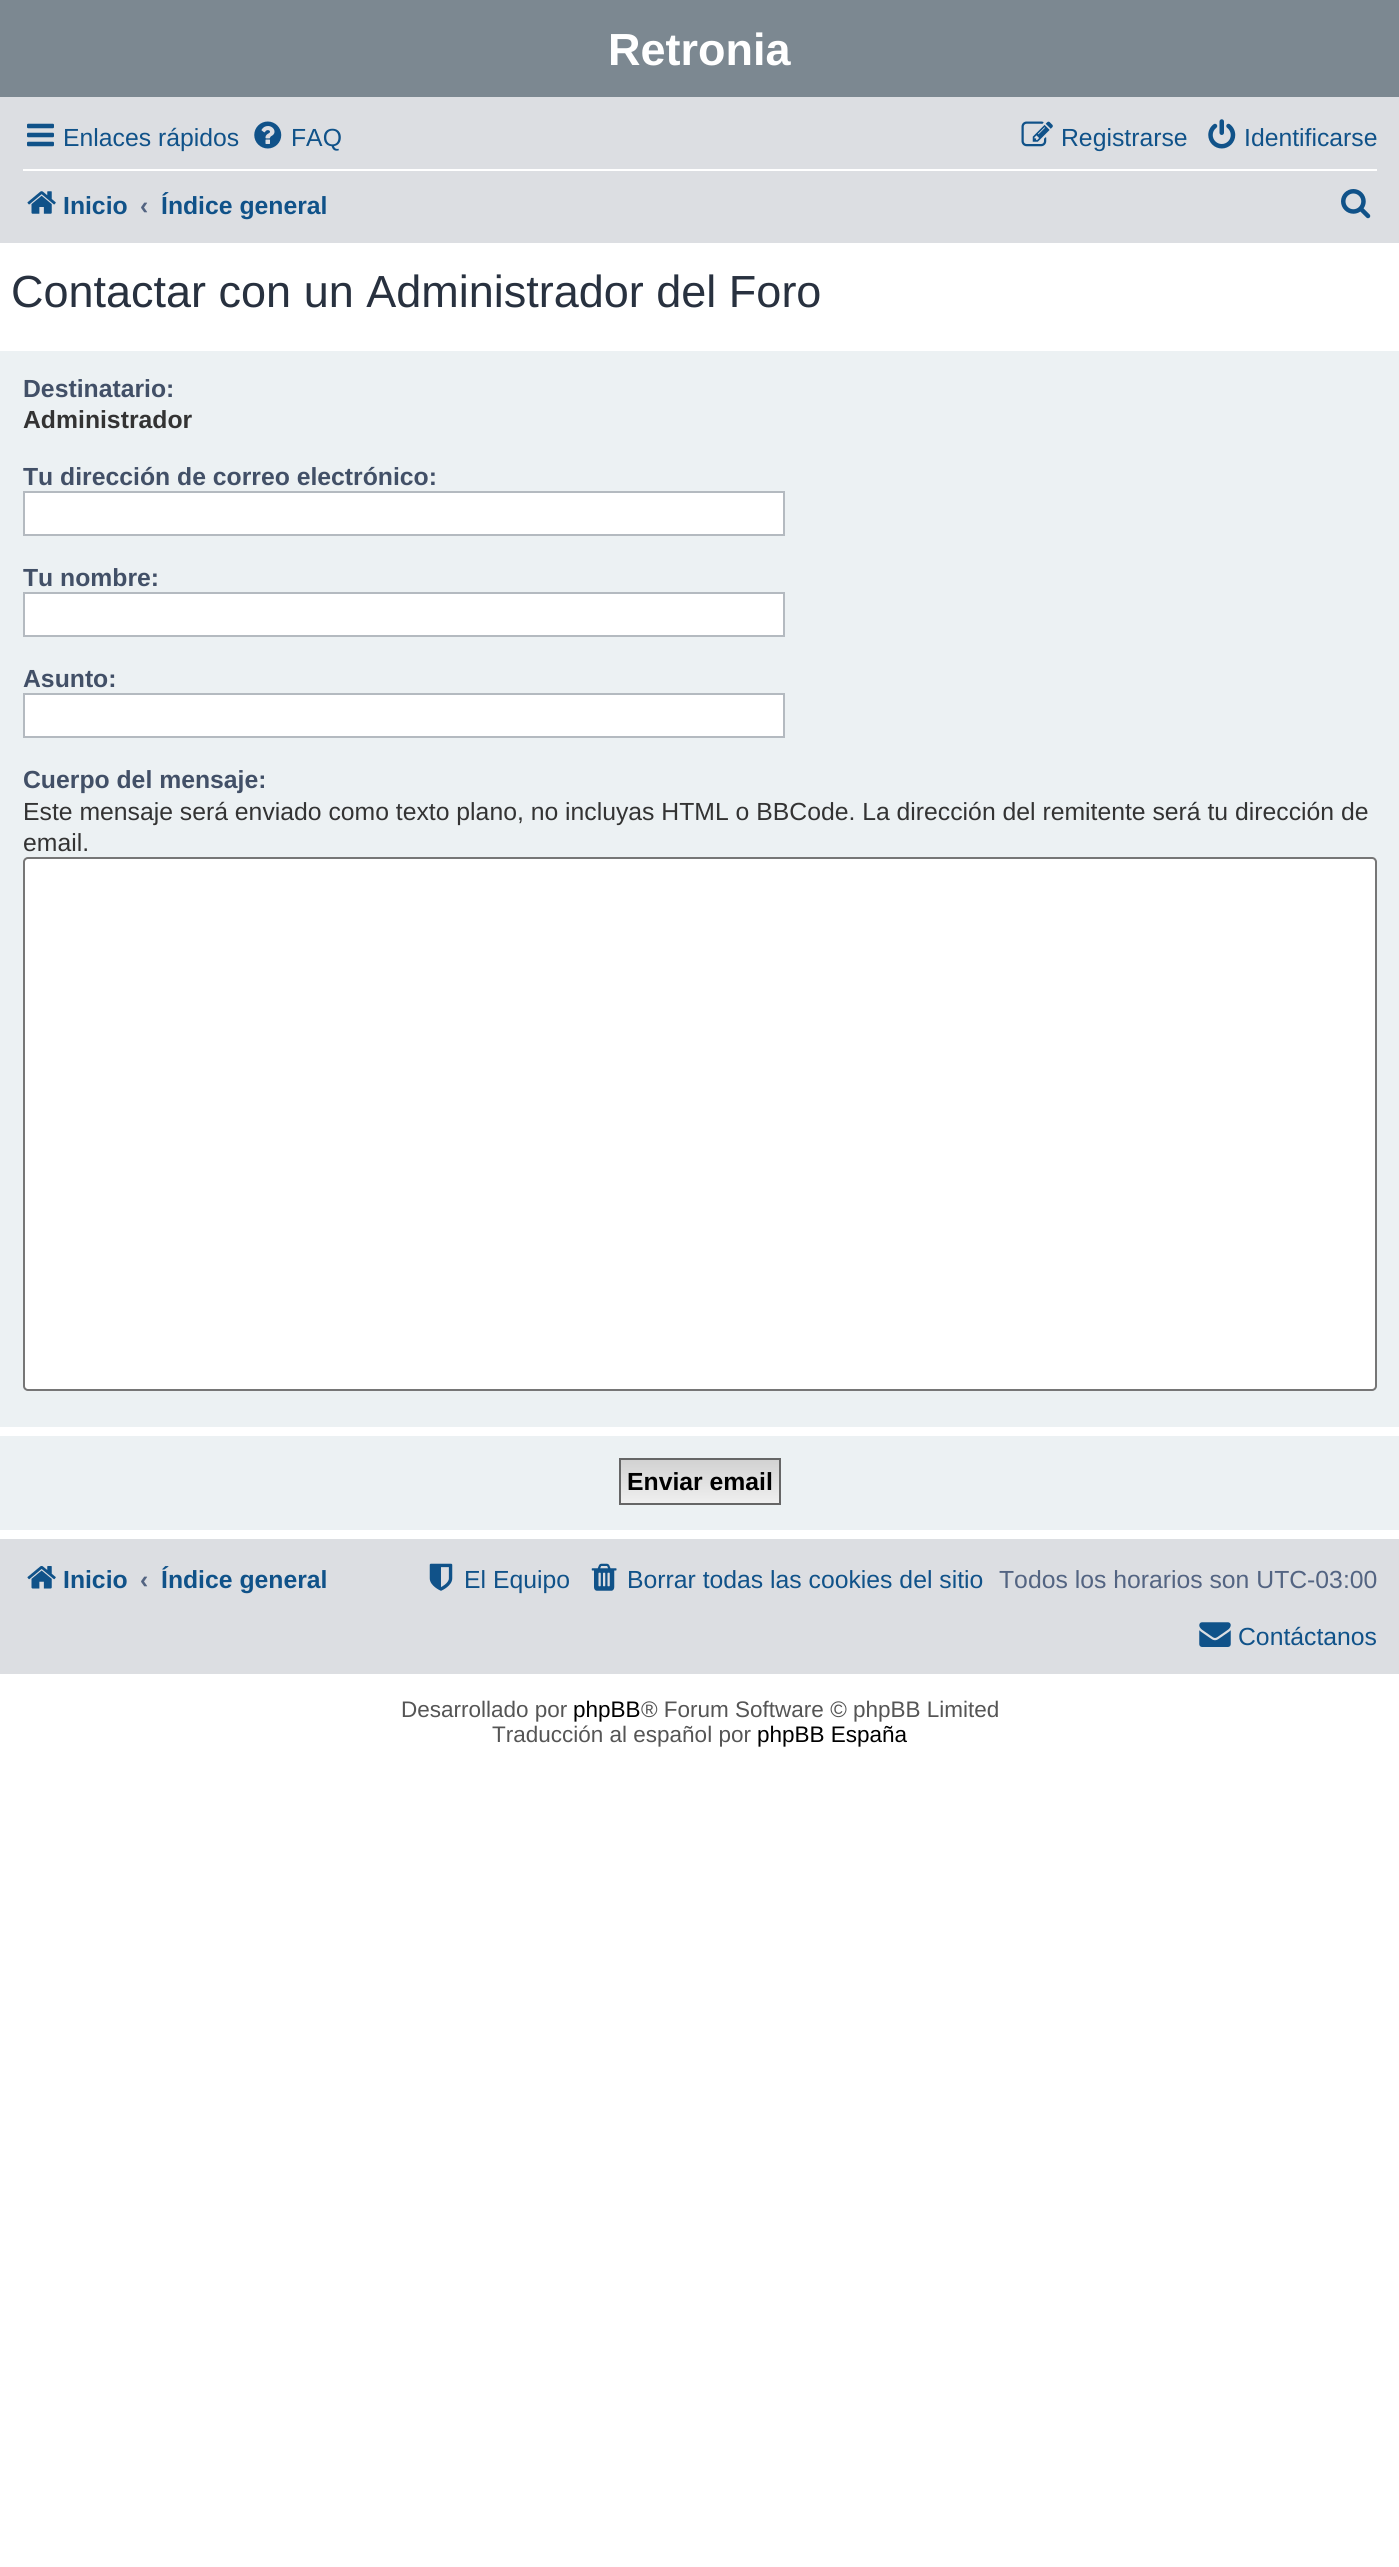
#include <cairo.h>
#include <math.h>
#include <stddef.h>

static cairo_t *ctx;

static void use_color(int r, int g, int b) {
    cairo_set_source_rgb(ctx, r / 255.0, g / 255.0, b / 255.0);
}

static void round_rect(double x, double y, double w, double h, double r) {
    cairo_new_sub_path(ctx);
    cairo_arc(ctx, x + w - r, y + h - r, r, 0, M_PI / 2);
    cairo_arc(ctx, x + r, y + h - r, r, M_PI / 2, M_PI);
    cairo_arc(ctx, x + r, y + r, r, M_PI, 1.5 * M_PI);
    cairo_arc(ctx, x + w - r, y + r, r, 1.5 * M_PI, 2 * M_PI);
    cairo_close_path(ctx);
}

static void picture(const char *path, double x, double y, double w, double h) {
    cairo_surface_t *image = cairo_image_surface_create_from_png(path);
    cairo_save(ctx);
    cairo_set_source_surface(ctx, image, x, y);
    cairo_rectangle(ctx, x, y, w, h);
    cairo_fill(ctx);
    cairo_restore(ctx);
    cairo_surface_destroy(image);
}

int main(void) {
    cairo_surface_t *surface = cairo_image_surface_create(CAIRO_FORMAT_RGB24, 1399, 2567);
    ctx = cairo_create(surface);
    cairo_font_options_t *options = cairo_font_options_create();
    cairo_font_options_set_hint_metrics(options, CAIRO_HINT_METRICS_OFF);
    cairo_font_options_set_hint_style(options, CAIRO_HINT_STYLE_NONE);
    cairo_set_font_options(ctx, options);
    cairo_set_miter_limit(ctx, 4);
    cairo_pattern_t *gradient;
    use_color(255, 255, 255);
    cairo_paint(ctx);
    use_color(124, 136, 145);
    cairo_rectangle(ctx, 0, 0, 1399, 97);
    cairo_fill(ctx);
    cairo_select_font_face(ctx, "Liberation Sans", CAIRO_FONT_SLANT_NORMAL, CAIRO_FONT_WEIGHT_BOLD);
    cairo_set_font_size(ctx, 45);
    use_color(255, 255, 255);
    cairo_move_to(ctx, 608, 65);
    cairo_show_text(ctx, "Retronia");
    use_color(220, 222, 226);
    cairo_rectangle(ctx, 0, 97, 1399, 146);
    cairo_fill(ctx);
    picture("img1.png", 27, 123, 27, 24);
    cairo_select_font_face(ctx, "Liberation Sans", CAIRO_FONT_SLANT_NORMAL, CAIRO_FONT_WEIGHT_NORMAL);
    cairo_set_font_size(ctx, 24.75);
    use_color(16, 82, 137);
    cairo_move_to(ctx, 63, 146);
    cairo_show_text(ctx, "Enlaces rápidos");
    picture("img2.png", 254, 121, 28, 28);
    cairo_move_to(ctx, 291, 146);
    cairo_show_text(ctx, "FAQ");
    picture("img3.png", 1021, 121, 32, 26);
    cairo_move_to(ctx, 1061, 146);
    cairo_show_text(ctx, "Registrarse");
    picture("img4.png", 1208, 119, 28, 30);
    cairo_move_to(ctx, 1244, 146);
    cairo_show_text(ctx, "Identificarse");
    use_color(255, 255, 255);
    cairo_rectangle(ctx, 23, 169, 1354, 2);
    cairo_fill(ctx);
    picture("img5.png", 27, 191, 29, 23);
    cairo_select_font_face(ctx, "Liberation Sans", CAIRO_FONT_SLANT_NORMAL, CAIRO_FONT_WEIGHT_BOLD);
    use_color(16, 82, 137);
    cairo_move_to(ctx, 63, 214);
    cairo_show_text(ctx, "Inicio");
    use_color(83, 100, 130);
    cairo_move_to(ctx, 140, 214);
    cairo_show_text(ctx, "‹");
    use_color(16, 82, 137);
    cairo_move_to(ctx, 161, 214);
    cairo_show_text(ctx, "Índice general");
    picture("img6.png", 1341, 189, 30, 30);
    cairo_select_font_face(ctx, "Liberation Sans", CAIRO_FONT_SLANT_NORMAL, CAIRO_FONT_WEIGHT_NORMAL);
    cairo_set_font_size(ctx, 45);
    use_color(40, 49, 63);
    cairo_move_to(ctx, 11, 307);
    cairo_show_text(ctx, "Contactar con un Administrador del Foro");
    use_color(236, 241, 243);
    cairo_rectangle(ctx, 0, 351, 1399, 1076);
    cairo_fill(ctx);
    cairo_select_font_face(ctx, "Liberation Sans", CAIRO_FONT_SLANT_NORMAL, CAIRO_FONT_WEIGHT_BOLD);
    cairo_set_font_size(ctx, 24.75);
    use_color(66, 80, 103);
    cairo_move_to(ctx, 23, 397);
    cairo_show_text(ctx, "Destinatario:");
    use_color(51, 51, 51);
    cairo_move_to(ctx, 23, 428);
    cairo_show_text(ctx, "Administrador");
    cairo_save(ctx);
    cairo_rectangle(ctx, 23, 450, 1354, 101);
    cairo_clip(ctx);
    use_color(66, 80, 103);
    cairo_move_to(ctx, 23, 485);
    cairo_show_text(ctx, "Tu dirección de correo electrónico:");
    cairo_restore(ctx);
    use_color(255, 255, 255);
    cairo_rectangle(ctx, 24, 492, 760, 43);
    cairo_fill_preserve(ctx);
    use_color(180, 186, 192);
    cairo_stroke(ctx);
    cairo_save(ctx);
    cairo_rectangle(ctx, 23, 551, 1354, 102);
    cairo_clip(ctx);
    use_color(66, 80, 103);
    cairo_move_to(ctx, 23, 586);
    cairo_show_text(ctx, "Tu nombre:");
    cairo_restore(ctx);
    use_color(255, 255, 255);
    cairo_rectangle(ctx, 24, 593, 760, 43);
    cairo_fill_preserve(ctx);
    use_color(180, 186, 192);
    cairo_stroke(ctx);
    use_color(66, 80, 103);
    cairo_move_to(ctx, 23, 687);
    cairo_show_text(ctx, "Asunto:");
    use_color(255, 255, 255);
    cairo_rectangle(ctx, 24, 694, 760, 43);
    cairo_fill_preserve(ctx);
    use_color(180, 186, 192);
    cairo_stroke(ctx);
    use_color(66, 80, 103);
    cairo_move_to(ctx, 23, 788);
    cairo_show_text(ctx, "Cuerpo del mensaje:");
    cairo_select_font_face(ctx, "Liberation Sans", CAIRO_FONT_SLANT_NORMAL, CAIRO_FONT_WEIGHT_NORMAL);
    use_color(51, 51, 51);
    cairo_move_to(ctx, 23, 820);
    cairo_show_text(ctx, "Este mensaje será enviado como texto plano, no incluyas HTML o BBCode. La dirección del remitente será tu dirección de");
    cairo_move_to(ctx, 23, 851);
    cairo_show_text(ctx, "email.");
    use_color(255, 255, 255);
    round_rect(24, 858, 1352, 532, 4);
    cairo_fill_preserve(ctx);
    use_color(118, 118, 118);
    cairo_stroke(ctx);
    use_color(236, 241, 243);
    cairo_rectangle(ctx, 0, 1436, 1399, 94);
    cairo_fill(ctx);
    gradient = cairo_pattern_create_linear(700, 1460, 700, 1503);
    cairo_pattern_add_color_stop_rgba(gradient, 0, 0.824, 0.824, 0.824, 1);
    cairo_pattern_add_color_stop_rgba(gradient, 1, 0.937, 0.937, 0.937, 1);
    cairo_set_source(ctx, gradient);
    cairo_pattern_destroy(gradient);
    cairo_rectangle(ctx, 621, 1460, 158, 43);
    cairo_fill(ctx);
    cairo_rectangle(ctx, 620, 1459, 160, 45);
    use_color(102, 102, 102);
    cairo_stroke(ctx);
    cairo_select_font_face(ctx, "Liberation Sans", CAIRO_FONT_SLANT_NORMAL, CAIRO_FONT_WEIGHT_BOLD);
    use_color(0, 0, 0);
    cairo_move_to(ctx, 627, 1490);
    cairo_show_text(ctx, "Enviar email");
    use_color(220, 222, 226);
    cairo_rectangle(ctx, 0, 1539, 1399, 135);
    cairo_fill(ctx);
    picture("img7.png", 27, 1566, 29, 23);
    use_color(16, 82, 137);
    cairo_move_to(ctx, 63, 1588);
    cairo_show_text(ctx, "Inicio");
    use_color(83, 100, 130);
    cairo_move_to(ctx, 140, 1588);
    cairo_show_text(ctx, "‹");
    use_color(16, 82, 137);
    cairo_move_to(ctx, 161, 1588);
    cairo_show_text(ctx, "Índice general");
    picture("img8.png", 429, 1563, 24, 28);
    cairo_select_font_face(ctx, "Liberation Sans", CAIRO_FONT_SLANT_NORMAL, CAIRO_FONT_WEIGHT_NORMAL);
    cairo_move_to(ctx, 464, 1588);
    cairo_show_text(ctx, "El Equipo");
    picture("img9.png", 591, 1563, 26, 28);
    cairo_move_to(ctx, 627, 1588);
    cairo_show_text(ctx, "Borrar todas las cookies del sitio");
    use_color(83, 100, 130);
    cairo_move_to(ctx, 999, 1588);
    cairo_show_text(ctx, "Todos los horarios son UTC-03:00");
    picture("img10.png", 1199, 1622, 32, 25);
    use_color(16, 82, 137);
    cairo_move_to(ctx, 1238, 1645);
    cairo_show_text(ctx, "Contáctanos");
    cairo_set_font_size(ctx, 22.5);
    use_color(85, 85, 85);
    cairo_move_to(ctx, 401, 1717);
    cairo_show_text(ctx, "Desarrollado por");
    use_color(0, 0, 0);
    cairo_move_to(ctx, 573, 1717);
    cairo_show_text(ctx, "phpBB");
    use_color(85, 85, 85);
    cairo_move_to(ctx, 641, 1717);
    cairo_show_text(ctx, "® Forum Software © phpBB Limited");
    cairo_move_to(ctx, 492, 1742);
    cairo_show_text(ctx, "Traducción al español por");
    use_color(0, 0, 0);
    cairo_move_to(ctx, 757, 1742);
    cairo_show_text(ctx, "phpBB España");
    cairo_surface_write_to_png(surface, "result.png");
    cairo_font_options_destroy(options);
    cairo_destroy(ctx);
    cairo_surface_destroy(surface);
    return 0;
}
